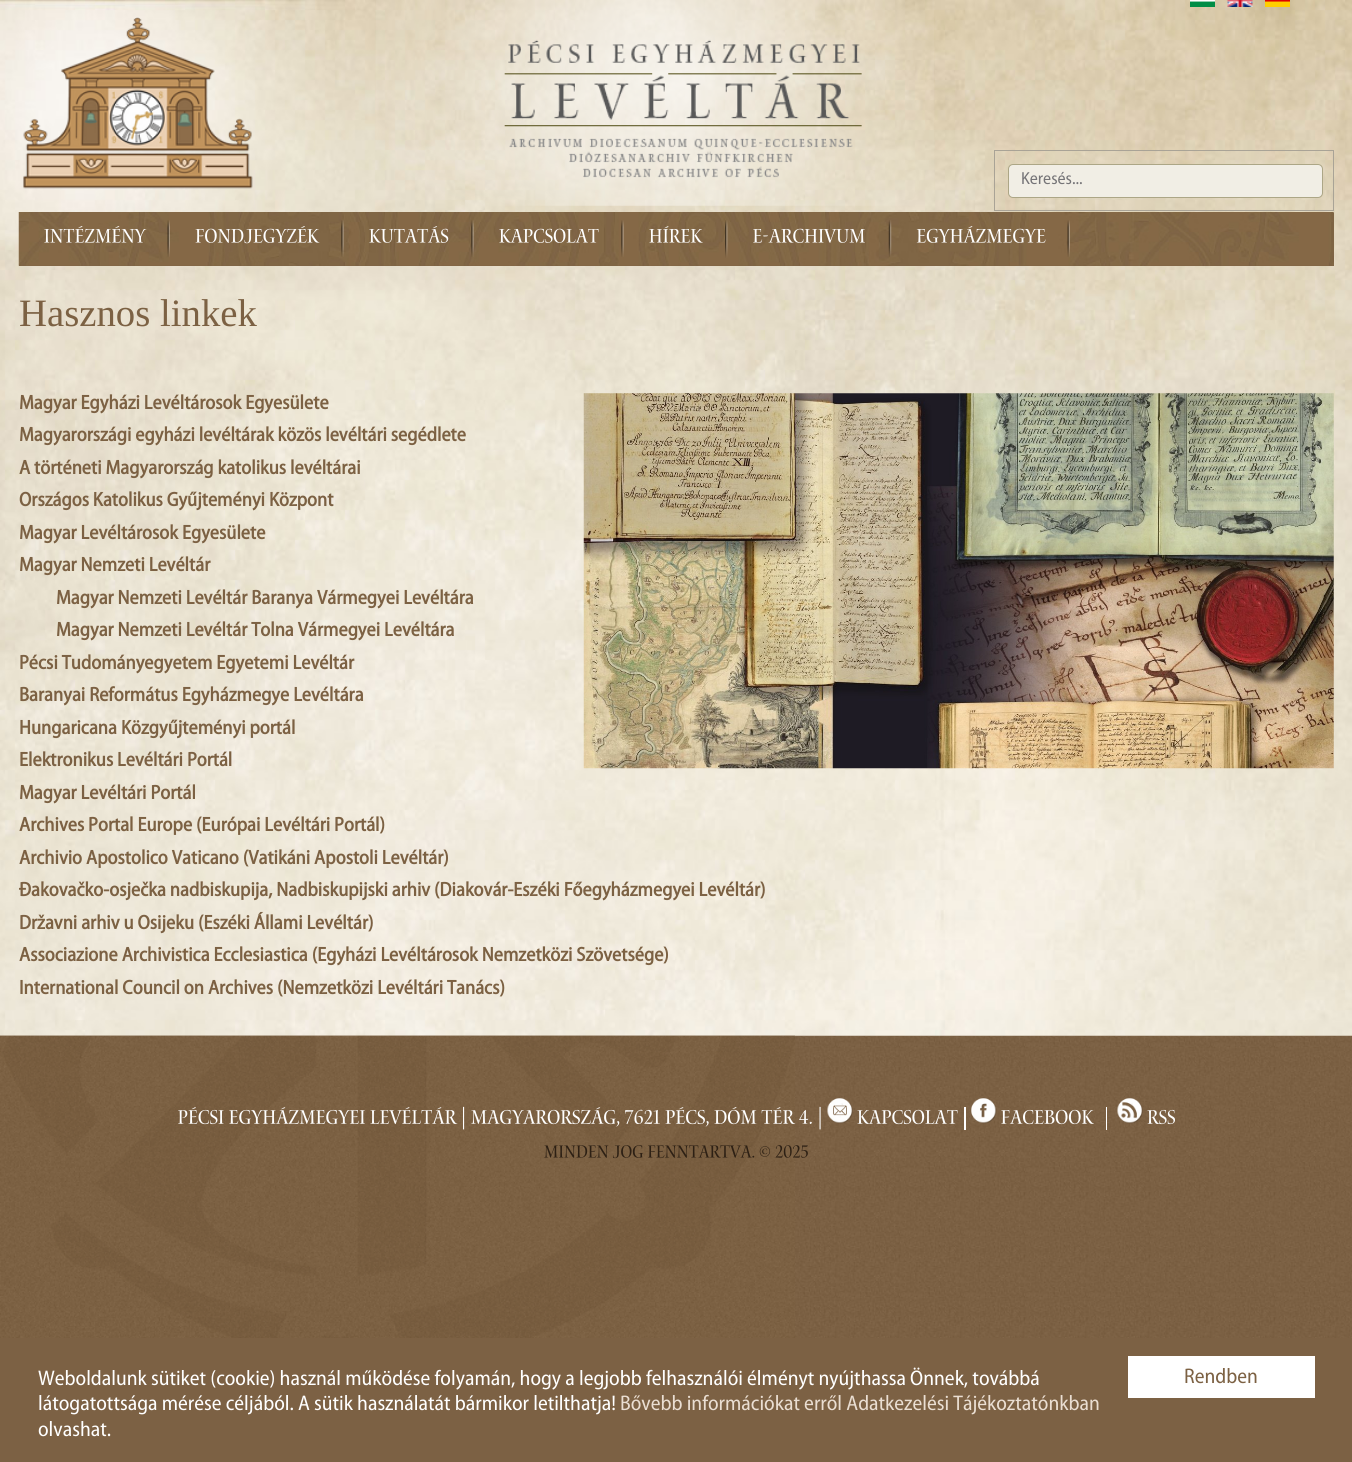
#include <cairo.h>
#include <math.h>
#include <stddef.h>

static cairo_t *ctx;

static void use_color(int r, int g, int b) {
    cairo_set_source_rgb(ctx, r / 255.0, g / 255.0, b / 255.0);
}

static void round_rect(double x, double y, double w, double h, double r) {
    cairo_new_sub_path(ctx);
    cairo_arc(ctx, x + w - r, y + h - r, r, 0, M_PI / 2);
    cairo_arc(ctx, x + r, y + h - r, r, M_PI / 2, M_PI);
    cairo_arc(ctx, x + r, y + r, r, M_PI, 1.5 * M_PI);
    cairo_arc(ctx, x + w - r, y + r, r, 1.5 * M_PI, 2 * M_PI);
    cairo_close_path(ctx);
}

static void picture(const char *path, double x, double y, double w, double h) {
    cairo_surface_t *image = cairo_image_surface_create_from_png(path);
    cairo_save(ctx);
    cairo_set_source_surface(ctx, image, x, y);
    cairo_rectangle(ctx, x, y, w, h);
    cairo_fill(ctx);
    cairo_restore(ctx);
    cairo_surface_destroy(image);
}

int main(void) {
    cairo_surface_t *surface = cairo_image_surface_create(CAIRO_FORMAT_RGB24, 1352, 1462);
    ctx = cairo_create(surface);
    cairo_font_options_t *options = cairo_font_options_create();
    cairo_font_options_set_hint_metrics(options, CAIRO_HINT_METRICS_OFF);
    cairo_font_options_set_hint_style(options, CAIRO_HINT_STYLE_NONE);
    cairo_set_font_options(ctx, options);
    cairo_set_miter_limit(ctx, 4);
    use_color(255, 255, 255);
    cairo_paint(ctx);
    picture("img1.png", 0, 0, 1352, 1036);
    picture("img2.png", 23, 17, 230, 172);
    picture("img3.png", 376, 0, 558, 206);
    picture("img4.png", 1190, 0, 25, 7);
    picture("img5.png", 1227, 0, 26, 7);
    picture("img6.png", 1265, 0, 25, 7);
    cairo_rectangle(ctx, 994.5, 150.5, 339, 60);
    use_color(169, 163, 150);
    cairo_set_line_width(ctx, 1);
    cairo_stroke(ctx);
    use_color(241, 238, 229);
    round_rect(1008.5, 164.5, 314, 33, 4.5);
    cairo_fill_preserve(ctx);
    use_color(172, 166, 134);
    cairo_stroke(ctx);
    cairo_select_font_face(ctx, "Myriad", CAIRO_FONT_SLANT_NORMAL, CAIRO_FONT_WEIGHT_NORMAL);
    cairo_set_font_size(ctx, 17.5);
    use_color(117, 116, 119);
    cairo_move_to(ctx, 1021, 184);
    cairo_show_text(ctx, "Keresés...");
    use_color(124, 97, 67);
    cairo_rectangle(ctx, 19, 213, 1315, 53);
    cairo_fill(ctx);
    picture("img7.png", 18, 212, 1316, 54);
    picture("img8.png", 167, 220, 3, 37);
    picture("img9.png", 44, 226, 103, 17);
    picture("img10.png", 341, 220, 3, 37);
    picture("img11.png", 195, 226, 125, 18);
    picture("img12.png", 471, 220, 3, 37);
    picture("img13.png", 369, 226, 80, 17);
    picture("img14.png", 621, 220, 3, 37);
    picture("img15.png", 499, 228, 100, 15);
    picture("img16.png", 725, 220, 3, 38);
    picture("img17.png", 649, 226, 54, 17);
    picture("img18.png", 888, 220, 4, 37);
    picture("img19.png", 753, 228, 112, 15);
    picture("img20.png", 1067, 220, 3, 37);
    picture("img21.png", 916, 226, 130, 17);
    cairo_select_font_face(ctx, "Liberation Serif", CAIRO_FONT_SLANT_NORMAL, CAIRO_FONT_WEIGHT_NORMAL);
    cairo_set_font_size(ctx, 38.75);
    cairo_move_to(ctx, 19, 326);
    cairo_show_text(ctx, "Hasznos linkek");
    cairo_select_font_face(ctx, "Myriad", CAIRO_FONT_SLANT_NORMAL, CAIRO_FONT_WEIGHT_BOLD);
    cairo_set_font_size(ctx, 20);
    cairo_move_to(ctx, 19, 409);
    cairo_show_text(ctx, "Magyar Egyházi Levéltárosok Egyesülete");
    picture("img22.png", 583, 393, 751, 376);
    cairo_move_to(ctx, 19, 441);
    cairo_show_text(ctx, "Magyarországi egyházi levéltárak közös levéltári segédlete");
    cairo_move_to(ctx, 19, 474);
    cairo_show_text(ctx, "A történeti Magyarország katolikus levéltárai");
    cairo_move_to(ctx, 19, 506);
    cairo_show_text(ctx, "Országos Katolikus Gyűjteményi Központ");
    cairo_move_to(ctx, 19, 539);
    cairo_show_text(ctx, "Magyar Levéltárosok Egyesülete");
    cairo_move_to(ctx, 19, 571);
    cairo_show_text(ctx, "Magyar Nemzeti Levéltár");
    cairo_move_to(ctx, 56, 604);
    cairo_show_text(ctx, "Magyar Nemzeti Levéltár Baranya Vármegyei Levéltára");
    cairo_move_to(ctx, 56, 636);
    cairo_show_text(ctx, "Magyar Nemzeti Levéltár Tolna Vármegyei Levéltára");
    cairo_move_to(ctx, 19, 669);
    cairo_show_text(ctx, "Pécsi Tudományegyetem Egyetemi Levéltár");
    cairo_move_to(ctx, 19, 701);
    cairo_show_text(ctx, "Baranyai Református Egyházmegye Levéltára");
    cairo_move_to(ctx, 19, 734);
    cairo_show_text(ctx, "Hungaricana Közgyűjteményi portál");
    cairo_move_to(ctx, 19, 766);
    cairo_show_text(ctx, "Elektronikus Levéltári Portál");
    cairo_move_to(ctx, 19, 799);
    cairo_show_text(ctx, "Magyar Levéltári Portál");
    cairo_move_to(ctx, 19, 831);
    cairo_show_text(ctx, "Archives Portal Europe (Európai Levéltári Portál)");
    cairo_move_to(ctx, 19, 864);
    cairo_show_text(ctx, "Archivio Apostolico Vaticano (Vatikáni Apostoli Levéltár)");
    cairo_move_to(ctx, 19, 896);
    cairo_show_text(ctx, "Đakovačko-osječka nadbiskupija, Nadbiskupijski arhiv (Diakovár-Eszéki Főegyházmegyei Levéltár)");
    cairo_move_to(ctx, 19, 929);
    cairo_show_text(ctx, "Državni arhiv u Osijeku (Eszéki Állami Levéltár)");
    cairo_move_to(ctx, 19, 961);
    cairo_show_text(ctx, "Associazione Archivistica Ecclesiastica (Egyházi Levéltárosok Nemzetközi Szövetsége)");
    cairo_move_to(ctx, 19, 994);
    cairo_show_text(ctx, "International Council on Archives (Nemzetközi Levéltári Tanács)");
    picture("img23.png", 0, 1035, 1352, 303);
    picture("img24.png", 0, 1035, 795, 303);
    picture("img25.png", 178, 1106, 643, 24);
    picture("img26.png", 827, 1098, 26, 26);
    picture("img27.png", 857, 1109, 101, 16);
    use_color(255, 255, 255);
    cairo_rectangle(ctx, 964, 1107, 2, 23);
    cairo_fill(ctx);
    picture("img28.png", 971, 1098, 26, 26);
    picture("img29.png", 1001, 1109, 93, 16);
    cairo_rectangle(ctx, 1106, 1107, 1, 23);
    cairo_fill(ctx);
    picture("img30.png", 1117, 1098, 26, 26);
    picture("img31.png", 1147, 1109, 28, 16);
    picture("img32.png", 544, 1145, 226, 14);
    picture("img33.png", 775, 1145, 33, 13);
    use_color(124, 97, 68);
    cairo_rectangle(ctx, 0, 1338, 1352, 124);
    cairo_fill(ctx);
    cairo_select_font_face(ctx, "Myriad", CAIRO_FONT_SLANT_NORMAL, CAIRO_FONT_WEIGHT_NORMAL);
    cairo_set_font_size(ctx, 21.25);
    use_color(255, 255, 255);
    cairo_move_to(ctx, 38, 1385);
    cairo_show_text(ctx, "Weboldalunk sütiket (cookie) használ működése folyamán, hogy a legjobb felhasználói élményt nyújthassa Önnek, továbbá");
    cairo_move_to(ctx, 38, 1410);
    cairo_show_text(ctx, "látogatottsága mérése céljából. A sütik használatát bármikor letilthatja!");
    use_color(234, 222, 210);
    cairo_move_to(ctx, 620, 1410);
    cairo_show_text(ctx, "Bővebb információkat erről Adatkezelési Tájékoztatónkban");
    use_color(255, 255, 255);
    cairo_move_to(ctx, 38, 1436);
    cairo_show_text(ctx, "olvashat.");
    cairo_rectangle(ctx, 1128, 1356, 187, 42);
    cairo_fill(ctx);
    use_color(124, 97, 67);
    cairo_move_to(ctx, 1184, 1383);
    cairo_show_text(ctx, "Rendben");
    cairo_surface_write_to_png(surface, "result.png");
    cairo_font_options_destroy(options);
    cairo_destroy(ctx);
    cairo_surface_destroy(surface);
    return 0;
}
